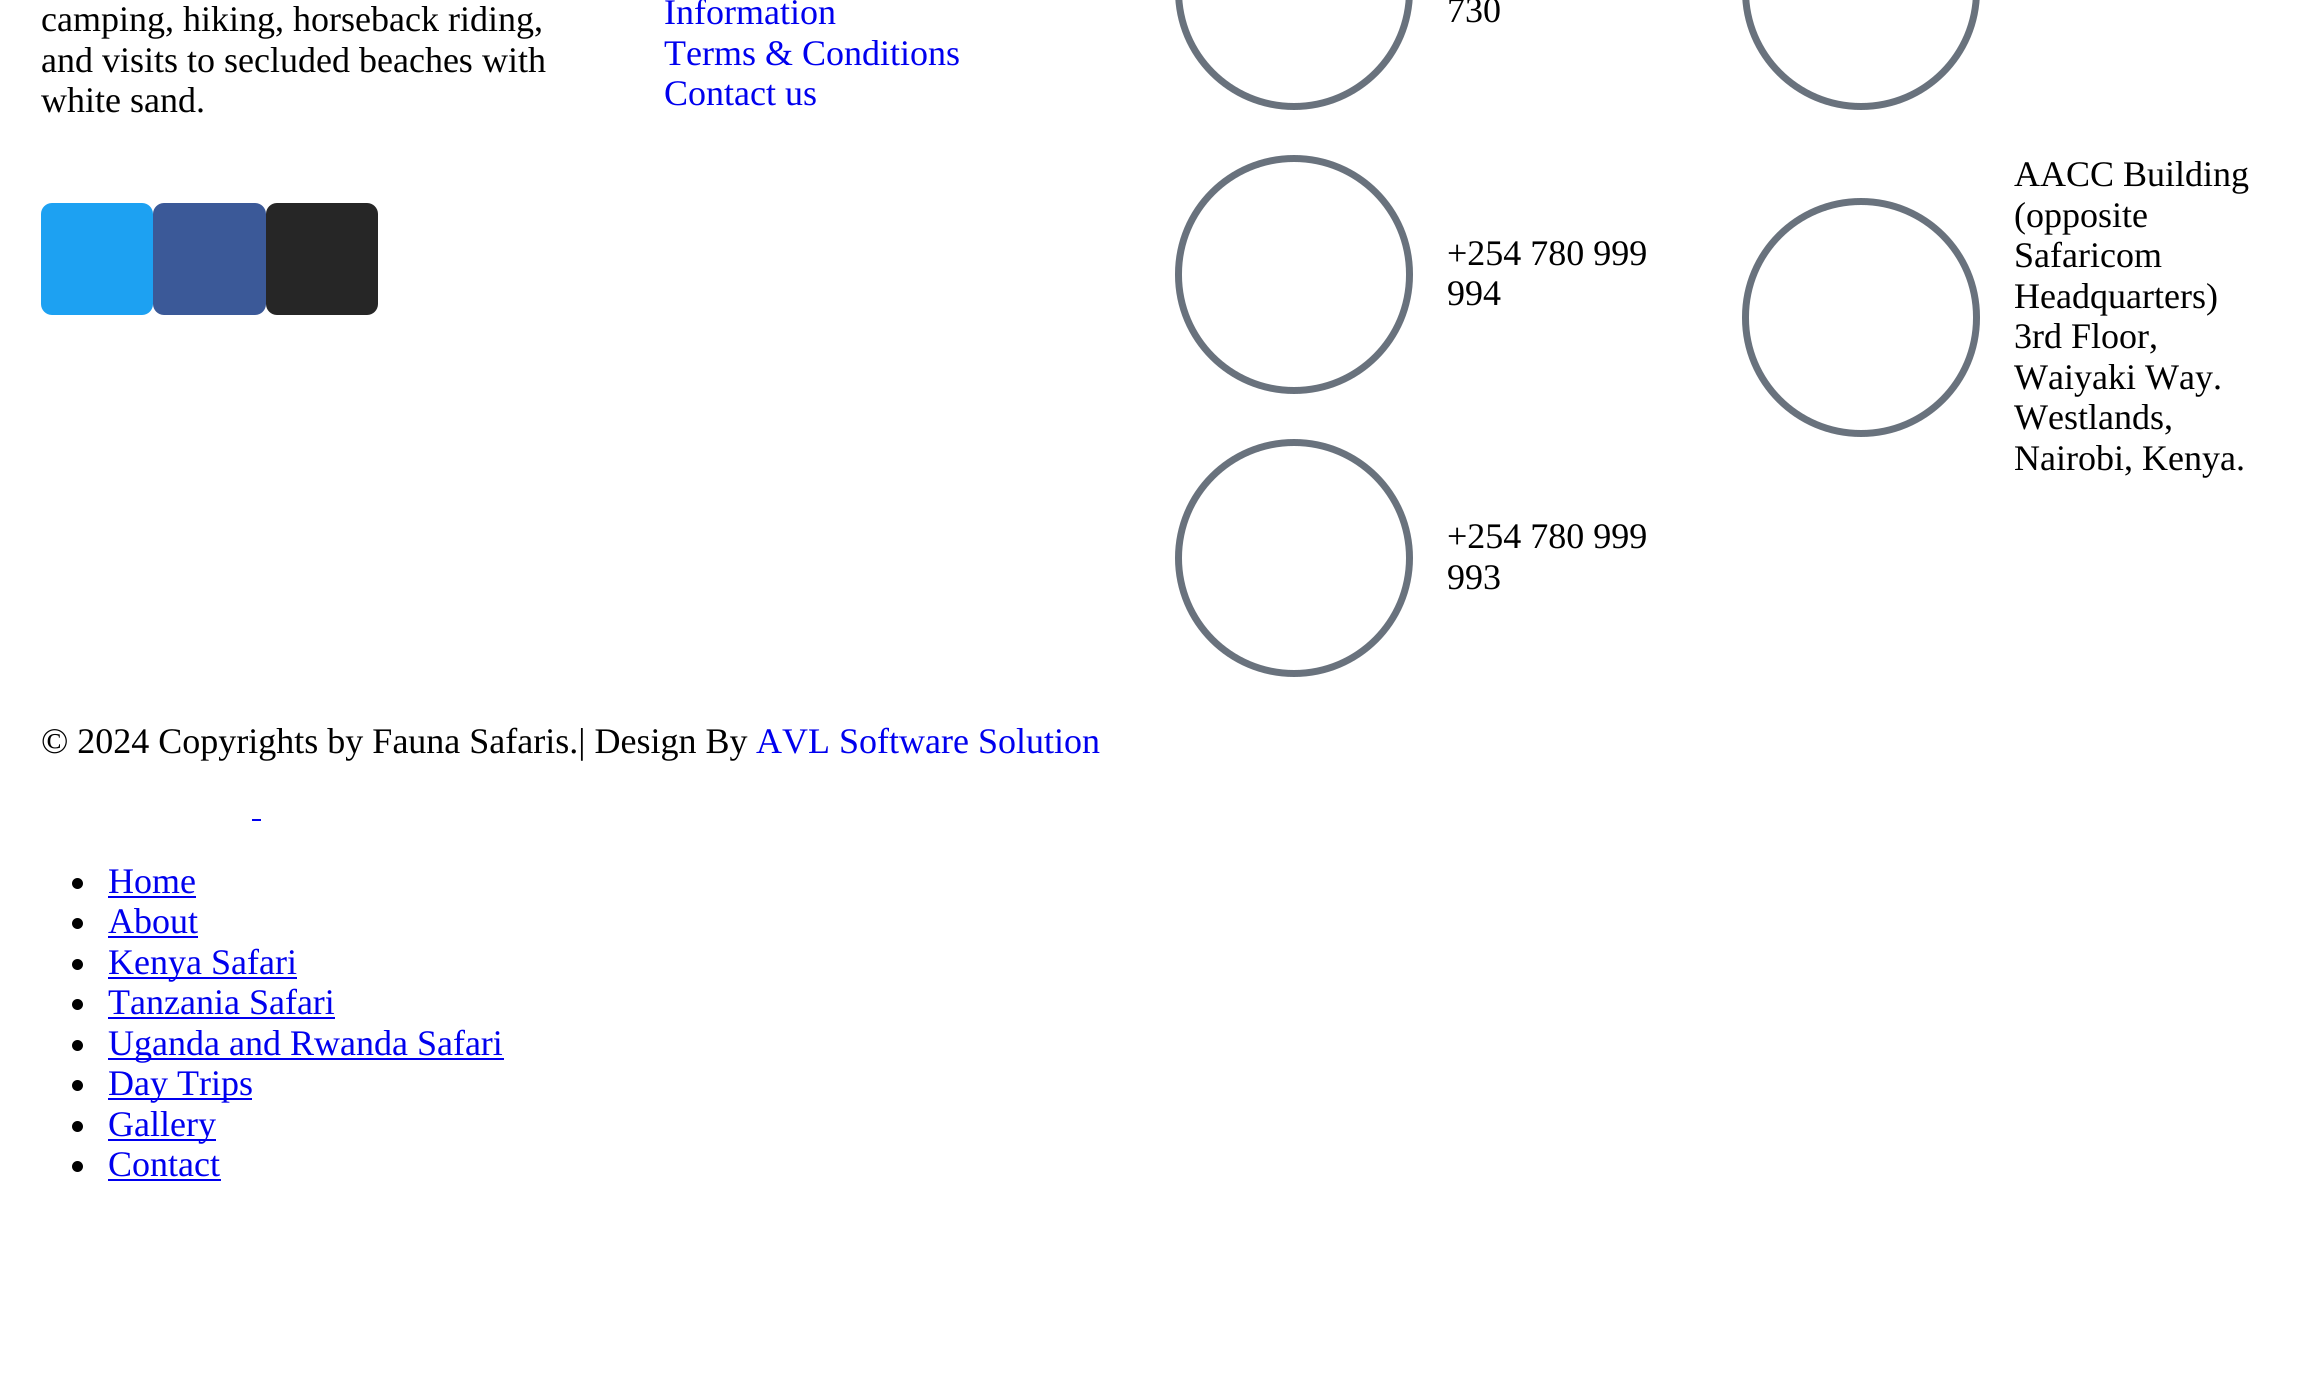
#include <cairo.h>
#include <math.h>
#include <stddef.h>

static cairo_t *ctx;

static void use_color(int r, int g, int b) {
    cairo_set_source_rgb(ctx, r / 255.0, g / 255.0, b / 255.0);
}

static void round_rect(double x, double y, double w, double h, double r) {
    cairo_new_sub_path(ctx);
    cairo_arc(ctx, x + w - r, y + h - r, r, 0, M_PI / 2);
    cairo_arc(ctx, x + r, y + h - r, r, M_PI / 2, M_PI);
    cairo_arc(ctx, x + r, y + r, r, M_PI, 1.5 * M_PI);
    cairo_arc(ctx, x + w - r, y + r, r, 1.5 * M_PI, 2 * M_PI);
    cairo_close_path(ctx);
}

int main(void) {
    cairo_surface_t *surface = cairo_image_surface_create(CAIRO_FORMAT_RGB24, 2304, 1377);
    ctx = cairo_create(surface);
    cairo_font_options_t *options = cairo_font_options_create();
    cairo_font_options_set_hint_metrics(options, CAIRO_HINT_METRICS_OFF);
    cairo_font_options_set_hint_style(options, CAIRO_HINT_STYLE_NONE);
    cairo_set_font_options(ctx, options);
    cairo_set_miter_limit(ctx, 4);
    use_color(255, 255, 255);
    cairo_paint(ctx);
    cairo_select_font_face(ctx, "Liberation Serif", CAIRO_FONT_SLANT_NORMAL, CAIRO_FONT_WEIGHT_NORMAL);
    cairo_set_font_size(ctx, 36);
    use_color(0, 0, 0);
    cairo_move_to(ctx, 41, 31);
    cairo_show_text(ctx, "camping, hiking, horseback riding,");
    cairo_move_to(ctx, 41, 72);
    cairo_show_text(ctx, "and visits to secluded beaches with");
    cairo_move_to(ctx, 41, 112);
    cairo_show_text(ctx, "white sand.");
    use_color(29, 161, 242);
    round_rect(41, 203, 112, 112, 11);
    cairo_fill(ctx);
    use_color(59, 89, 152);
    round_rect(153, 203, 113, 112, 11);
    cairo_fill(ctx);
    use_color(38, 38, 38);
    round_rect(266, 203, 112, 112, 11);
    cairo_fill(ctx);
    use_color(0, 0, 238);
    cairo_move_to(ctx, 664, 24);
    cairo_show_text(ctx, "Information");
    cairo_move_to(ctx, 664, 65);
    cairo_show_text(ctx, "Terms & Conditions");
    cairo_move_to(ctx, 664, 105);
    cairo_show_text(ctx, "Contact us");
    round_rect(1178.5, -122.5, 231, 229, 115.5);
    use_color(105, 114, 125);
    cairo_set_line_width(ctx, 7);
    cairo_stroke(ctx);
    use_color(0, 0, 0);
    cairo_move_to(ctx, 1447, 22);
    cairo_show_text(ctx, "730");
    round_rect(1178.5, 158.5, 231, 232, 115.5);
    use_color(105, 114, 125);
    cairo_stroke(ctx);
    use_color(0, 0, 0);
    cairo_move_to(ctx, 1447, 265);
    cairo_show_text(ctx, "+254 780 999");
    cairo_move_to(ctx, 1447, 305);
    cairo_show_text(ctx, "994");
    cairo_new_path(ctx);
    cairo_arc(ctx, 1294, 558, 115.5, 0, 2 * M_PI);
    use_color(105, 114, 125);
    cairo_stroke(ctx);
    use_color(0, 0, 0);
    cairo_move_to(ctx, 1447, 548);
    cairo_show_text(ctx, "+254 780 999");
    cairo_move_to(ctx, 1447, 589);
    cairo_show_text(ctx, "993");
    round_rect(1745.5, -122.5, 231, 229, 115.5);
    use_color(105, 114, 125);
    cairo_stroke(ctx);
    round_rect(1745.5, 201.5, 231, 232, 115.5);
    cairo_stroke(ctx);
    use_color(0, 0, 0);
    cairo_move_to(ctx, 2014, 186);
    cairo_show_text(ctx, "AACC Building");
    cairo_move_to(ctx, 2014, 227);
    cairo_show_text(ctx, "(opposite");
    cairo_move_to(ctx, 2014, 267);
    cairo_show_text(ctx, "Safaricom");
    cairo_move_to(ctx, 2014, 308);
    cairo_show_text(ctx, "Headquarters)");
    cairo_move_to(ctx, 2014, 348);
    cairo_show_text(ctx, "3rd Floor,");
    cairo_move_to(ctx, 2014, 389);
    cairo_show_text(ctx, "Waiyaki Way.");
    cairo_move_to(ctx, 2014, 429);
    cairo_show_text(ctx, "Westlands,");
    cairo_move_to(ctx, 2014, 470);
    cairo_show_text(ctx, "Nairobi, Kenya.");
    cairo_move_to(ctx, 41, 753);
    cairo_show_text(ctx, "© 2024 Copyrights by Fauna Safaris.| Design By");
    use_color(0, 0, 238);
    cairo_move_to(ctx, 756, 753);
    cairo_show_text(ctx, "AVL Software Solution");
    cairo_rectangle(ctx, 252, 819, 9, 2);
    cairo_fill(ctx);
    use_color(0, 0, 0);
    cairo_arc(ctx, 77.5, 883.5, 5.5, 0, 2 * M_PI);
    cairo_fill(ctx);
    use_color(0, 0, 238);
    cairo_move_to(ctx, 108, 893);
    cairo_show_text(ctx, "Home");
    cairo_rectangle(ctx, 108, 896, 88, 2);
    cairo_fill(ctx);
    use_color(0, 0, 0);
    cairo_arc(ctx, 77.5, 923.5, 5.5, 0, 2 * M_PI);
    cairo_fill(ctx);
    use_color(0, 0, 238);
    cairo_move_to(ctx, 108, 933);
    cairo_show_text(ctx, "About");
    cairo_rectangle(ctx, 108, 936, 90, 2);
    cairo_fill(ctx);
    use_color(0, 0, 0);
    cairo_arc(ctx, 77.5, 964.5, 5.5, 0, 2 * M_PI);
    cairo_fill(ctx);
    use_color(0, 0, 238);
    cairo_rectangle(ctx, 108, 977, 189, 2);
    cairo_fill(ctx);
    cairo_move_to(ctx, 108, 974);
    cairo_show_text(ctx, "Kenya Safari");
    use_color(0, 0, 0);
    cairo_new_path(ctx);
    cairo_arc(ctx, 77.5, 1004.5, 5.5, 0, 2 * M_PI);
    cairo_fill(ctx);
    use_color(0, 0, 238);
    cairo_move_to(ctx, 108, 1014);
    cairo_show_text(ctx, "Tanzania Safari");
    cairo_rectangle(ctx, 108, 1017, 227, 2);
    cairo_fill(ctx);
    use_color(0, 0, 0);
    cairo_arc(ctx, 77.5, 1045.5, 5.5, 0, 2 * M_PI);
    cairo_fill(ctx);
    use_color(0, 0, 238);
    cairo_rectangle(ctx, 108, 1058, 396, 2);
    cairo_fill(ctx);
    cairo_move_to(ctx, 108, 1055);
    cairo_show_text(ctx, "Uganda and Rwanda Safari");
    use_color(0, 0, 0);
    cairo_new_path(ctx);
    cairo_arc(ctx, 77.5, 1085.5, 5.5, 0, 2 * M_PI);
    cairo_fill(ctx);
    use_color(0, 0, 238);
    cairo_rectangle(ctx, 108, 1098, 144, 2);
    cairo_fill(ctx);
    cairo_move_to(ctx, 108, 1095);
    cairo_show_text(ctx, "Day Trips");
    use_color(0, 0, 0);
    cairo_new_path(ctx);
    cairo_arc(ctx, 77.5, 1126.5, 5.5, 0, 2 * M_PI);
    cairo_fill(ctx);
    use_color(0, 0, 238);
    cairo_rectangle(ctx, 108, 1139, 108, 2);
    cairo_fill(ctx);
    cairo_move_to(ctx, 108, 1136);
    cairo_show_text(ctx, "Gallery");
    use_color(0, 0, 0);
    cairo_new_path(ctx);
    cairo_arc(ctx, 77.5, 1166.5, 5.5, 0, 2 * M_PI);
    cairo_fill(ctx);
    use_color(0, 0, 238);
    cairo_move_to(ctx, 108, 1176);
    cairo_show_text(ctx, "Contact");
    cairo_rectangle(ctx, 108, 1179, 113, 2);
    cairo_fill(ctx);
    cairo_surface_write_to_png(surface, "result.png");
    cairo_font_options_destroy(options);
    cairo_destroy(ctx);
    cairo_surface_destroy(surface);
    return 0;
}
